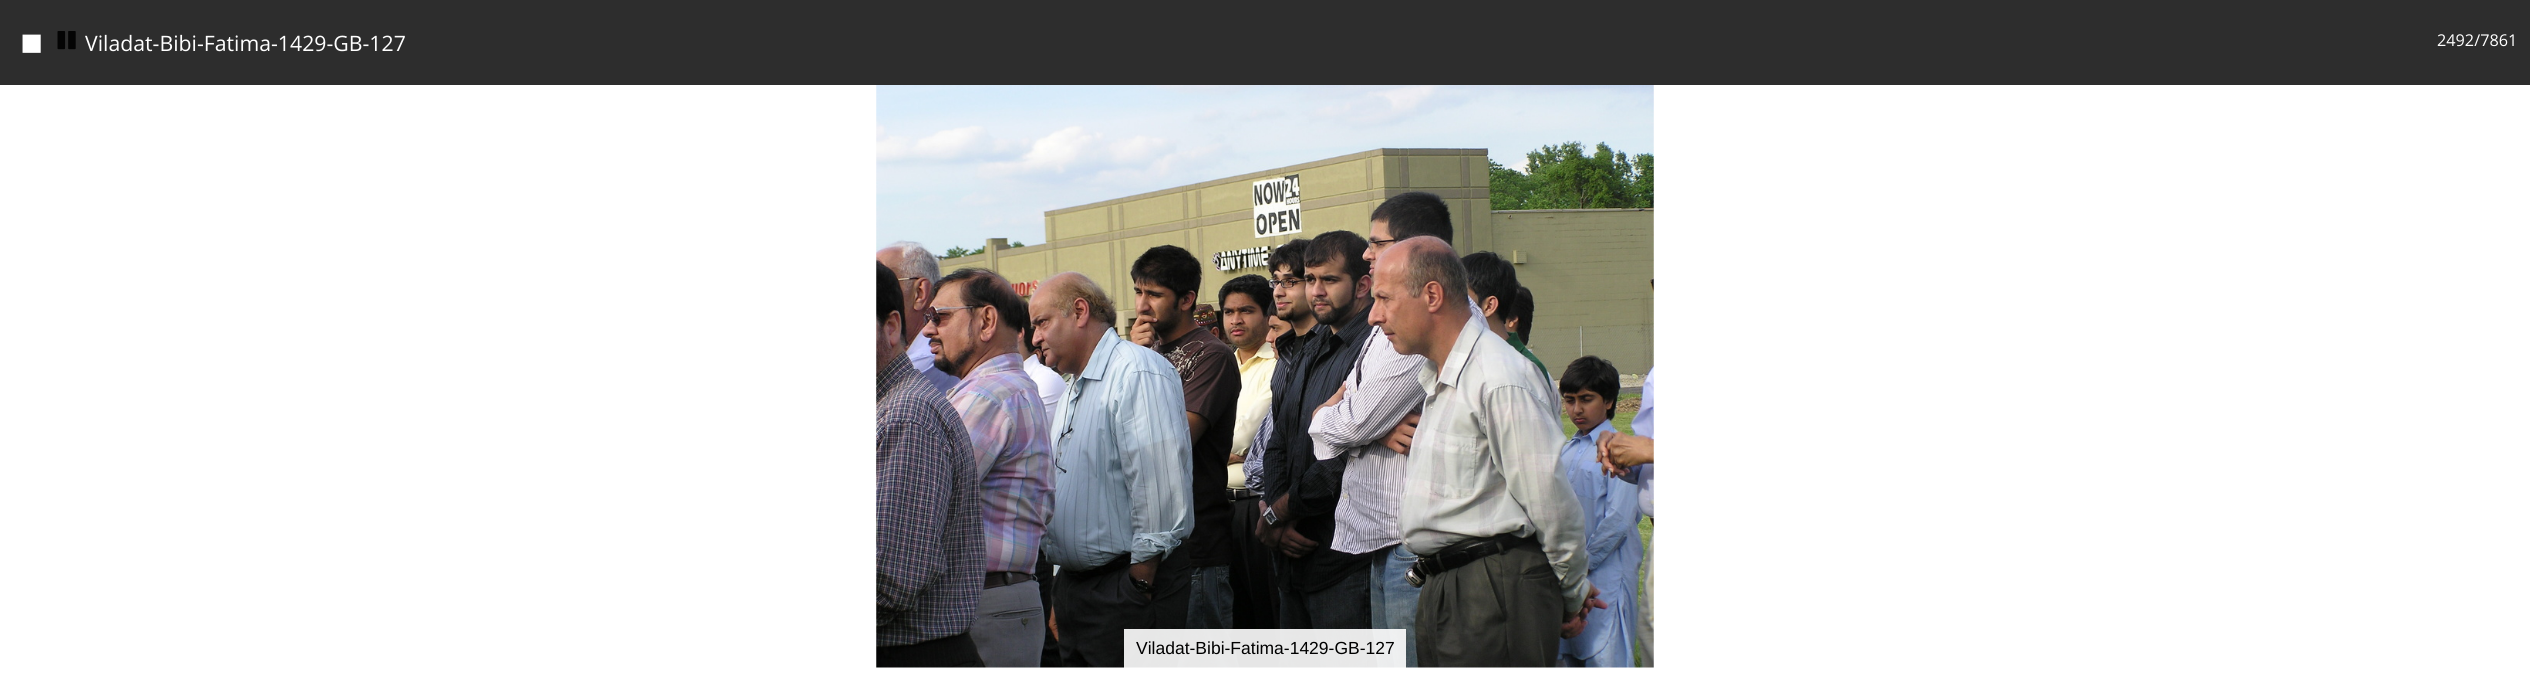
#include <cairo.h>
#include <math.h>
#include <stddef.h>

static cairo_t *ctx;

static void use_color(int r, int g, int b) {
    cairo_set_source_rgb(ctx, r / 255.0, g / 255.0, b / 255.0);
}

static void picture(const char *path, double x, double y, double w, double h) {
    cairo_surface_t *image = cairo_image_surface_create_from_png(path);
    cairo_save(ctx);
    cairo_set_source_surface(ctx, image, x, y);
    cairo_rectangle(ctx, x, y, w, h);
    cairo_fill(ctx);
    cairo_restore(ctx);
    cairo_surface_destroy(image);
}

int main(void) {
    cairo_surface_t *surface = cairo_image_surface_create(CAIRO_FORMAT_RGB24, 2530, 698);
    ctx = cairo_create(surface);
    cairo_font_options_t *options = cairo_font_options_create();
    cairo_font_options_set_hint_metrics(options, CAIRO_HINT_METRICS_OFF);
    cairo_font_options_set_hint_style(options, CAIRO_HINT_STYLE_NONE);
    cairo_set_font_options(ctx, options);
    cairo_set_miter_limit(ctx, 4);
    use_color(255, 255, 255);
    cairo_paint(ctx);
    use_color(45, 45, 45);
    cairo_rectangle(ctx, 0, 0, 2530, 85);
    cairo_fill(ctx);
    cairo_select_font_face(ctx, "DejaVu Sans", CAIRO_FONT_SLANT_NORMAL, CAIRO_FONT_WEIGHT_NORMAL);
    cairo_set_font_size(ctx, 28);
    use_color(255, 255, 255);
    cairo_move_to(ctx, 20, 51);
    cairo_show_text(ctx, "◼");
    picture("img1.png", 57, 31, 19, 19);
    cairo_select_font_face(ctx, "Open Sans", CAIRO_FONT_SLANT_NORMAL, CAIRO_FONT_WEIGHT_NORMAL);
    cairo_set_font_size(ctx, 21.25);
    cairo_move_to(ctx, 85, 51);
    cairo_show_text(ctx, "Viladat-Bibi-Fatima-1429-GB-127");
    cairo_set_font_size(ctx, 16.25);
    cairo_move_to(ctx, 2437, 46);
    cairo_show_text(ctx, "2492/7861");
    picture("img2.png", 876, 85, 778, 583);
    cairo_set_source_rgba(ctx, 1, 1, 1, 0.9);
    cairo_rectangle(ctx, 1124, 629, 282, 39);
    cairo_fill(ctx);
    cairo_select_font_face(ctx, "Liberation Sans", CAIRO_FONT_SLANT_NORMAL, CAIRO_FONT_WEIGHT_NORMAL);
    cairo_set_font_size(ctx, 17.5);
    use_color(0, 0, 0);
    cairo_move_to(ctx, 1136, 654);
    cairo_show_text(ctx, "Viladat-Bibi-Fatima-1429-GB-127");
    cairo_surface_write_to_png(surface, "result.png");
    cairo_font_options_destroy(options);
    cairo_destroy(ctx);
    cairo_surface_destroy(surface);
    return 0;
}
